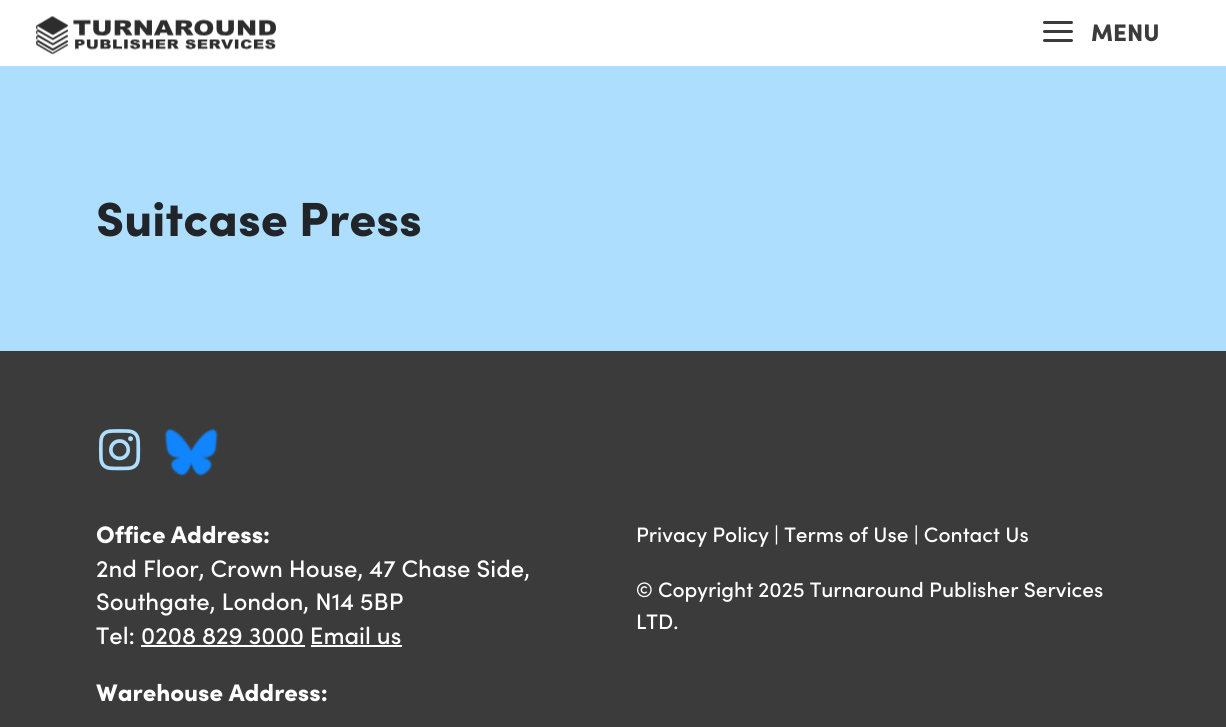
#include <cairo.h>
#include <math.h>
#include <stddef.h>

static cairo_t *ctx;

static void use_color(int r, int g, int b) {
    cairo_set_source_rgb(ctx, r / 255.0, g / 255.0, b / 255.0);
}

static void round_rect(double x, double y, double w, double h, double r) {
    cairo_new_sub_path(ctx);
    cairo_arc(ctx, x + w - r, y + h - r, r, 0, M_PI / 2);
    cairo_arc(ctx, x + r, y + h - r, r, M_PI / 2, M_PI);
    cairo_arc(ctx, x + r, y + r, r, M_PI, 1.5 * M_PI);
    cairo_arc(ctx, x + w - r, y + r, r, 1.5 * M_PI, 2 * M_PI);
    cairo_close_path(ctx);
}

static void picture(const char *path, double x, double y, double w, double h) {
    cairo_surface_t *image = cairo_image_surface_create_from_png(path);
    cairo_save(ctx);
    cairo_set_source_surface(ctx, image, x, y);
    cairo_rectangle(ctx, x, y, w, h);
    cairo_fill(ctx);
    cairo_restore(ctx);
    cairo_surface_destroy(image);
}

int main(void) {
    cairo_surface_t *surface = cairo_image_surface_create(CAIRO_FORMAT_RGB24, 1226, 727);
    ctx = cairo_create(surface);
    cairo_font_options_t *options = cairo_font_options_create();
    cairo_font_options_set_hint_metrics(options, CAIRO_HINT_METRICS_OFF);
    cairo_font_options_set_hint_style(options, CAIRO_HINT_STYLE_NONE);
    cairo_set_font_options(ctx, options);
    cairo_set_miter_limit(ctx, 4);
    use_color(173, 222, 253);
    cairo_paint(ctx);
    use_color(255, 255, 255);
    cairo_rectangle(ctx, 0, 0, 1226, 66);
    cairo_fill(ctx);
    picture("img1.png", 36, 16, 240, 39);
    use_color(59, 59, 59);
    round_rect(1043, 21, 30, 3, 1.5);
    cairo_fill(ctx);
    round_rect(1043, 30, 30, 3, 1.5);
    cairo_fill(ctx);
    cairo_select_font_face(ctx, "Sofia Black", CAIRO_FONT_SLANT_NORMAL, CAIRO_FONT_WEIGHT_NORMAL);
    cairo_set_font_size(ctx, 24);
    cairo_move_to(ctx, 1091, 41);
    cairo_show_text(ctx, "MENU");
    round_rect(1043, 39, 30, 3, 1.5);
    cairo_fill(ctx);
    cairo_set_font_size(ctx, 48);
    use_color(33, 37, 41);
    cairo_move_to(ctx, 96, 236);
    cairo_show_text(ctx, "Suitcase Press");
    use_color(59, 59, 59);
    cairo_rectangle(ctx, 0, 351, 1226, 376);
    cairo_fill(ctx);
    picture("img2.png", 99, 429, 42, 42);
    picture("img3.png", 165, 429, 53, 47);
    cairo_set_font_size(ctx, 24);
    use_color(255, 255, 255);
    cairo_move_to(ctx, 96, 543);
    cairo_show_text(ctx, "Office Address:");
    cairo_select_font_face(ctx, "Sofia Medium", CAIRO_FONT_SLANT_NORMAL, CAIRO_FONT_WEIGHT_NORMAL);
    cairo_move_to(ctx, 96, 577);
    cairo_show_text(ctx, "2nd Floor, Crown House, 47 Chase Side,");
    cairo_move_to(ctx, 96, 610);
    cairo_show_text(ctx, "Southgate, London, N14 5BP");
    cairo_move_to(ctx, 96, 644);
    cairo_show_text(ctx, "Tel: 0208 829 3000 Email us");
    cairo_rectangle(ctx, 141, 645, 164, 2);
    cairo_fill(ctx);
    cairo_rectangle(ctx, 311, 645, 91, 2);
    cairo_fill(ctx);
    cairo_select_font_face(ctx, "Sofia Black", CAIRO_FONT_SLANT_NORMAL, CAIRO_FONT_WEIGHT_NORMAL);
    cairo_move_to(ctx, 96, 701);
    cairo_show_text(ctx, "Warehouse Address:");
    cairo_select_font_face(ctx, "Sofia Medium", CAIRO_FONT_SLANT_NORMAL, CAIRO_FONT_WEIGHT_NORMAL);
    cairo_set_font_size(ctx, 21);
    cairo_move_to(ctx, 636, 542);
    cairo_show_text(ctx, "Privacy Policy | Terms of Use | Contact Us");
    cairo_move_to(ctx, 636, 597);
    cairo_show_text(ctx, "© Copyright 2025 Turnaround Publisher Services");
    cairo_move_to(ctx, 636, 629);
    cairo_show_text(ctx, "LTD.");
    cairo_surface_write_to_png(surface, "result.png");
    cairo_font_options_destroy(options);
    cairo_destroy(ctx);
    cairo_surface_destroy(surface);
    return 0;
}
